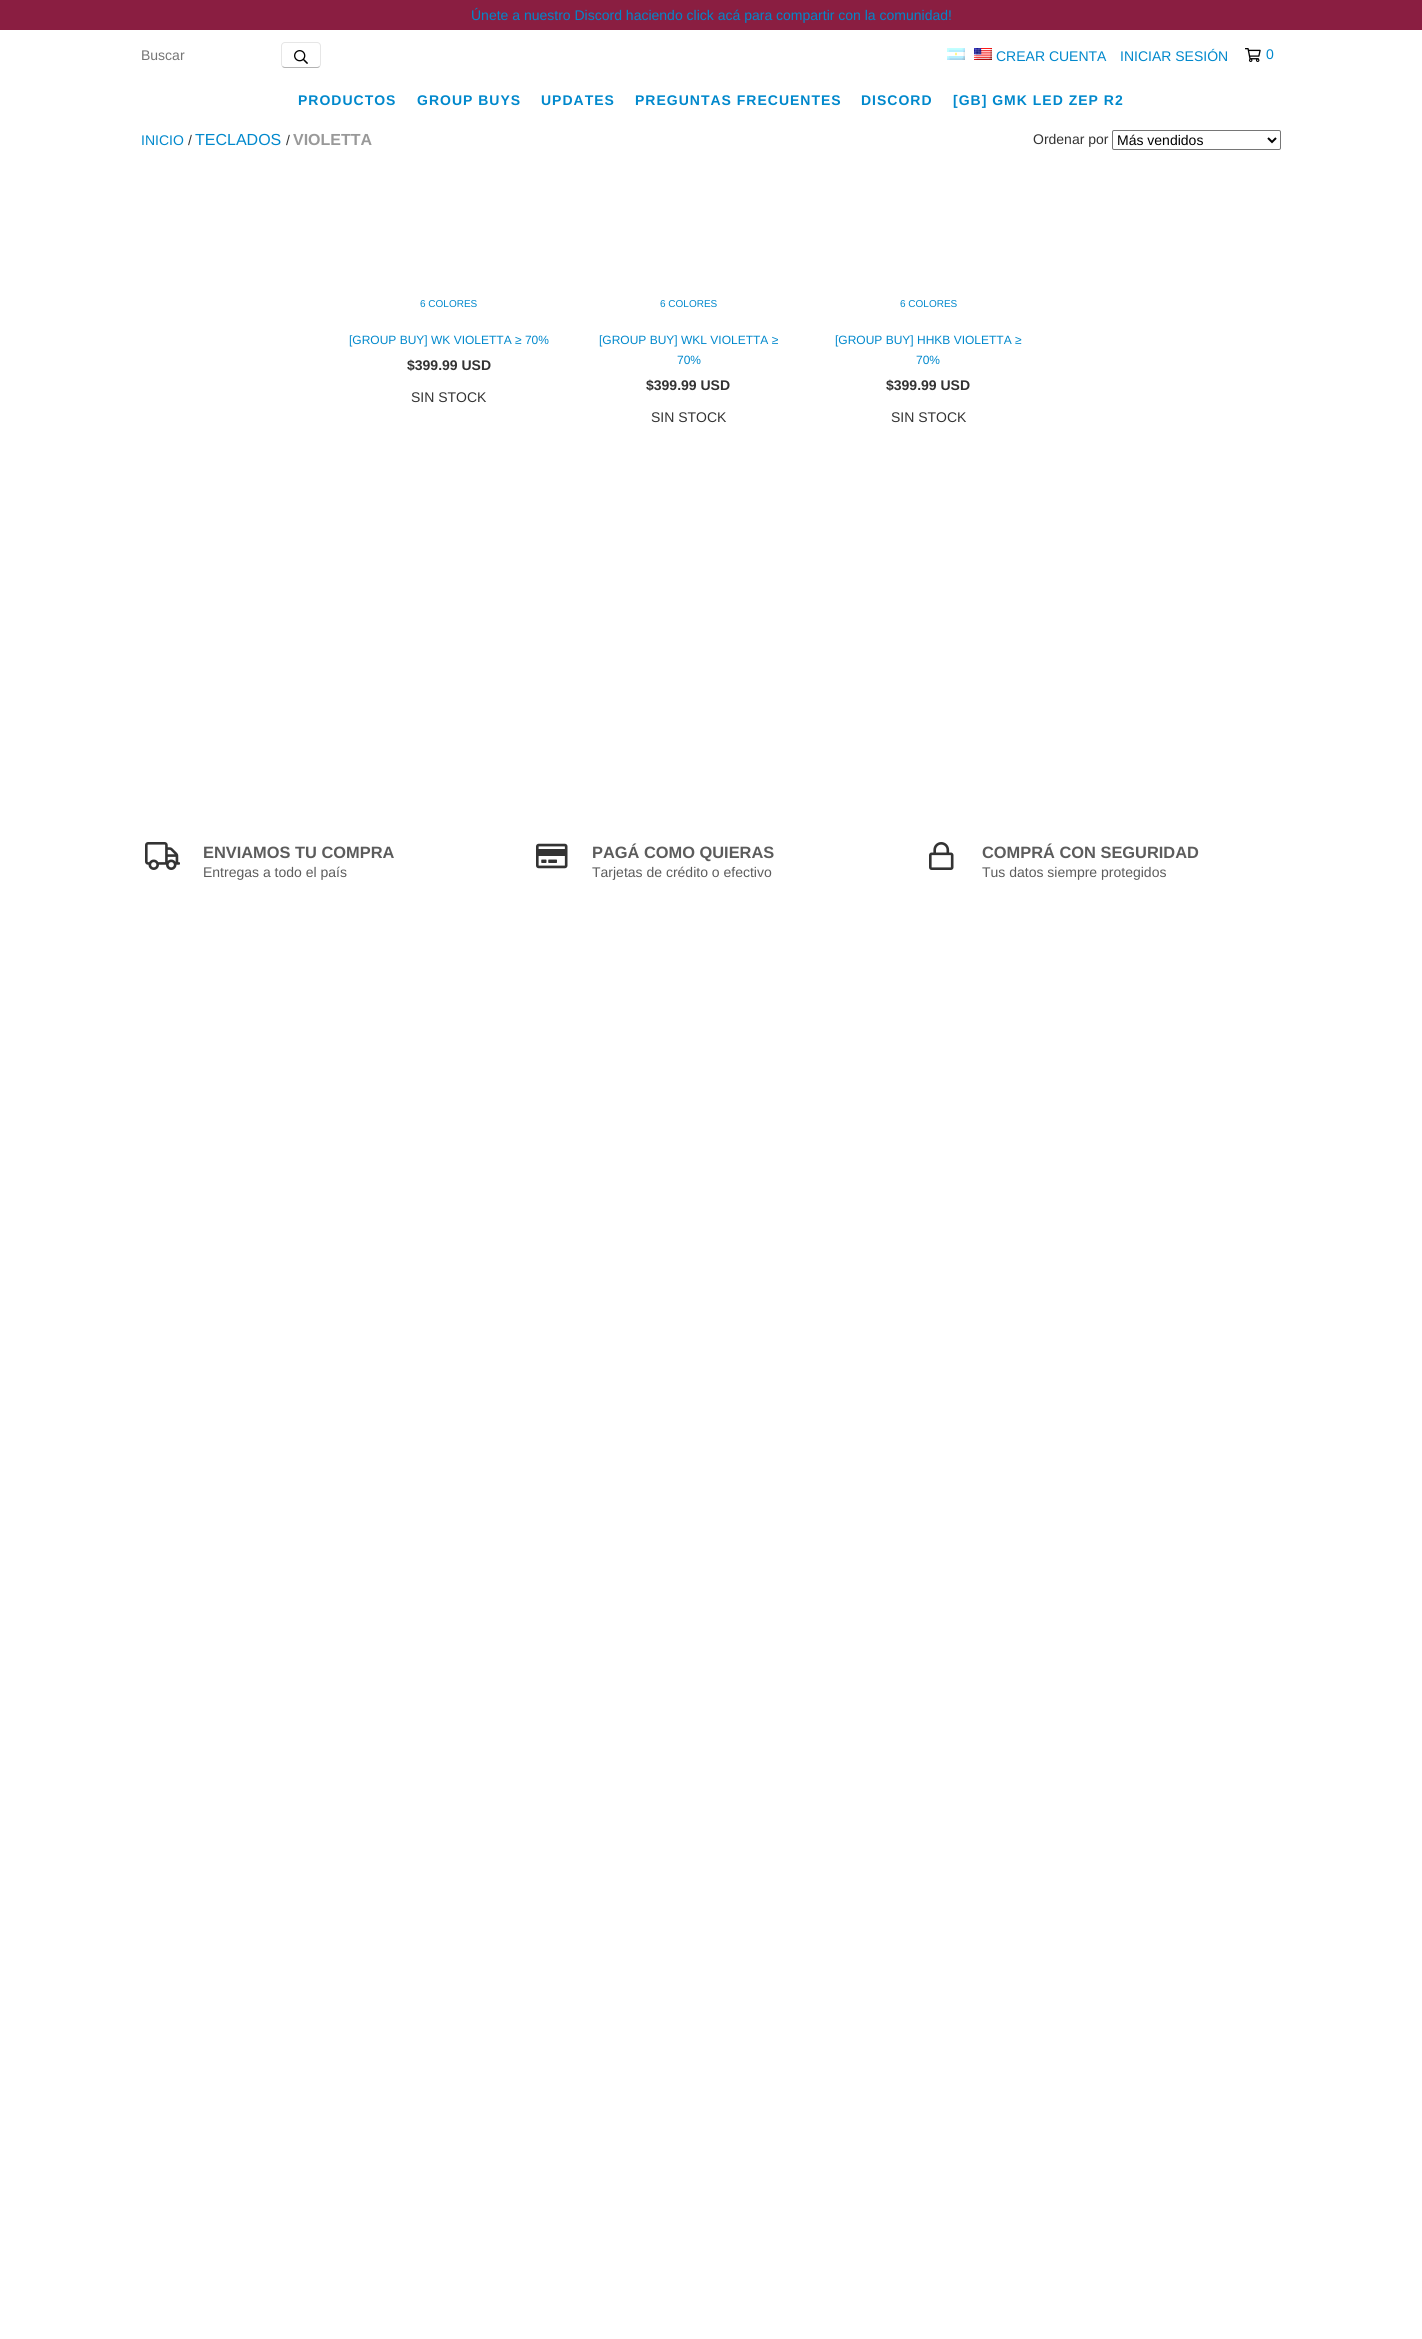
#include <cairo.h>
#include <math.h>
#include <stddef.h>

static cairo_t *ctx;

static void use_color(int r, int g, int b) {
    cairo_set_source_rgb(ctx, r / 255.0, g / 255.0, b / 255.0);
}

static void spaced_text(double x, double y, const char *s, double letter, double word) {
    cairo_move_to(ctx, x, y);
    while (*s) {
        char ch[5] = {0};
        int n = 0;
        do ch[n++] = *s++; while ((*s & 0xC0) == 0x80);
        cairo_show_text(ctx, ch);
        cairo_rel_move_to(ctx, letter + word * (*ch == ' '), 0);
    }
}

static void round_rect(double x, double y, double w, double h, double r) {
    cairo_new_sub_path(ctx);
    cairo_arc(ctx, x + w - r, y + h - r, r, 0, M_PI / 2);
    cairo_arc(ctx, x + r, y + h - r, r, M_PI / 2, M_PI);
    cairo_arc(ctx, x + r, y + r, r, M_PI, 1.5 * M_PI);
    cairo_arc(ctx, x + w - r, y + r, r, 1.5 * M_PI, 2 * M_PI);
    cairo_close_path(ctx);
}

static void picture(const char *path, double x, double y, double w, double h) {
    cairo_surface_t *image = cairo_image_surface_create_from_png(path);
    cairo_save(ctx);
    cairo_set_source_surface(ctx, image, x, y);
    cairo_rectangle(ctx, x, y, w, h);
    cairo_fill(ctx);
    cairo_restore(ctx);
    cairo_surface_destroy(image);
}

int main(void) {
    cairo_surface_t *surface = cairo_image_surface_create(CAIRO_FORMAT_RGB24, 1422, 2339);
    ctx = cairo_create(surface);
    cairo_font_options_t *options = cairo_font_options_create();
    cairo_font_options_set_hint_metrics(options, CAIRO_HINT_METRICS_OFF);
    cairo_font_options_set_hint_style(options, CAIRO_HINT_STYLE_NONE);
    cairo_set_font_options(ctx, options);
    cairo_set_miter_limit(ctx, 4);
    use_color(255, 255, 255);
    cairo_paint(ctx);
    use_color(138, 30, 65);
    cairo_rectangle(ctx, 0, 0, 1422, 30);
    cairo_fill(ctx);
    cairo_select_font_face(ctx, "Liberation Sans", CAIRO_FONT_SLANT_NORMAL, CAIRO_FONT_WEIGHT_NORMAL);
    cairo_set_font_size(ctx, 14);
    use_color(0, 136, 204);
    cairo_move_to(ctx, 471, 20);
    cairo_show_text(ctx, "Únete a nuestro Discord haciendo click acá para compartir con la comunidad!");
    use_color(117, 117, 117);
    cairo_move_to(ctx, 141, 60);
    cairo_show_text(ctx, "Buscar");
    cairo_new_path(ctx);
    cairo_move_to(ctx, 319.5, 66.5);
    cairo_curve_to(ctx, 319, 67, 318, 67.5, 317, 67.5);
    cairo_line_to(ctx, 285, 67.5);
    cairo_curve_to(ctx, 284, 67.5, 283, 67, 282.5, 66.5);
    use_color(179, 179, 179);
    cairo_set_line_width(ctx, 1);
    cairo_stroke(ctx);
    cairo_new_path(ctx);
    cairo_move_to(ctx, 282.5, 66.5);
    cairo_curve_to(ctx, 282, 66, 281.5, 65, 281.5, 64);
    cairo_line_to(ctx, 281.5, 46);
    cairo_curve_to(ctx, 281.5, 45, 282, 44, 282.5, 43.5);
    cairo_curve_to(ctx, 283, 43, 284, 42.5, 285, 42.5);
    cairo_line_to(ctx, 317, 42.5);
    cairo_curve_to(ctx, 318, 42.5, 319, 43, 319.5, 43.5);
    cairo_curve_to(ctx, 320, 44, 320.5, 45, 320.5, 46);
    cairo_line_to(ctx, 320.5, 64);
    cairo_curve_to(ctx, 320.5, 65, 320, 66, 319.5, 66.5);
    cairo_set_source_rgba(ctx, 0, 0, 0, 0.1);
    cairo_stroke(ctx);
    picture("img1.png", 294, 50, 14, 14);
    picture("img2.png", 947, 48, 18, 12);
    picture("img3.png", 974, 48, 18, 12);
    use_color(0, 136, 204);
    cairo_move_to(ctx, 996, 61);
    cairo_show_text(ctx, "CREAR CUENTA");
    cairo_move_to(ctx, 1120, 61);
    cairo_show_text(ctx, "INICIAR SESIÓN");
    picture("img4.png", 1245, 48, 16, 14);
    spaced_text(1266, 59, "0", 1, 0);
    cairo_select_font_face(ctx, "Liberation Sans", CAIRO_FONT_SLANT_NORMAL, CAIRO_FONT_WEIGHT_BOLD);
    spaced_text(298, 105, "PRODUCTOS", 1, 0);
    spaced_text(417, 105, "GROUP BUYS", 1, 0);
    spaced_text(541, 105, "UPDATES", 1, 0);
    spaced_text(635, 105, "PREGUNTAS FRECUENTES", 1, 0);
    spaced_text(861, 105, "DISCORD", 1, 0);
    spaced_text(953, 105, "[GB] GMK LED ZEP R2", 1, 0);
    cairo_select_font_face(ctx, "Liberation Sans", CAIRO_FONT_SLANT_NORMAL, CAIRO_FONT_WEIGHT_NORMAL);
    cairo_move_to(ctx, 141, 145);
    cairo_show_text(ctx, "INICIO");
    use_color(51, 51, 51);
    cairo_move_to(ctx, 188, 145);
    cairo_show_text(ctx, "/");
    cairo_set_font_size(ctx, 16);
    use_color(0, 136, 204);
    cairo_move_to(ctx, 195, 145);
    cairo_show_text(ctx, "TECLADOS");
    cairo_set_font_size(ctx, 14);
    use_color(51, 51, 51);
    cairo_move_to(ctx, 286, 145);
    cairo_show_text(ctx, "/");
    cairo_select_font_face(ctx, "Liberation Sans", CAIRO_FONT_SLANT_NORMAL, CAIRO_FONT_WEIGHT_BOLD);
    cairo_set_font_size(ctx, 16);
    use_color(153, 153, 153);
    cairo_move_to(ctx, 293, 145);
    cairo_show_text(ctx, "VIOLETTA");
    cairo_select_font_face(ctx, "Liberation Sans", CAIRO_FONT_SLANT_NORMAL, CAIRO_FONT_WEIGHT_NORMAL);
    cairo_set_font_size(ctx, 14);
    use_color(51, 51, 51);
    cairo_move_to(ctx, 1033, 144);
    cairo_show_text(ctx, "Ordenar por");
    round_rect(1112.5, 130.5, 168, 19, 1.5);
    use_color(118, 118, 118);
    cairo_stroke(ctx);
    cairo_new_path(ctx);
    cairo_move_to(ctx, 1268, 138);
    cairo_line_to(ctx, 1272, 142);
    cairo_line_to(ctx, 1276, 138);
    use_color(0, 0, 0);
    cairo_set_line_width(ctx, 2);
    cairo_stroke(ctx);
    cairo_move_to(ctx, 1117, 145);
    cairo_show_text(ctx, "Más vendidos");
    cairo_set_font_size(ctx, 10);
    use_color(0, 136, 204);
    cairo_move_to(ctx, 420, 307);
    cairo_show_text(ctx, "6 COLORES");
    cairo_set_font_size(ctx, 12);
    cairo_move_to(ctx, 349, 344);
    cairo_show_text(ctx, "[GROUP BUY] WK VIOLETTA ≥ 70%");
    cairo_select_font_face(ctx, "Liberation Sans", CAIRO_FONT_SLANT_NORMAL, CAIRO_FONT_WEIGHT_BOLD);
    cairo_set_font_size(ctx, 14);
    use_color(51, 51, 51);
    cairo_move_to(ctx, 407, 370);
    cairo_show_text(ctx, "$399.99 USD");
    cairo_select_font_face(ctx, "Liberation Sans", CAIRO_FONT_SLANT_NORMAL, CAIRO_FONT_WEIGHT_NORMAL);
    cairo_move_to(ctx, 411, 402);
    cairo_show_text(ctx, "SIN STOCK");
    cairo_set_font_size(ctx, 10);
    use_color(0, 136, 204);
    cairo_move_to(ctx, 660, 307);
    cairo_show_text(ctx, "6 COLORES");
    cairo_set_font_size(ctx, 12);
    cairo_move_to(ctx, 599, 344);
    cairo_show_text(ctx, "[GROUP BUY] WKL VIOLETTA ≥");
    cairo_move_to(ctx, 677, 364);
    cairo_show_text(ctx, "70%");
    cairo_select_font_face(ctx, "Liberation Sans", CAIRO_FONT_SLANT_NORMAL, CAIRO_FONT_WEIGHT_BOLD);
    cairo_set_font_size(ctx, 14);
    use_color(51, 51, 51);
    cairo_move_to(ctx, 646, 390);
    cairo_show_text(ctx, "$399.99 USD");
    cairo_select_font_face(ctx, "Liberation Sans", CAIRO_FONT_SLANT_NORMAL, CAIRO_FONT_WEIGHT_NORMAL);
    cairo_move_to(ctx, 651, 422);
    cairo_show_text(ctx, "SIN STOCK");
    cairo_set_font_size(ctx, 10);
    use_color(0, 136, 204);
    cairo_move_to(ctx, 900, 307);
    cairo_show_text(ctx, "6 COLORES");
    cairo_set_font_size(ctx, 12);
    cairo_move_to(ctx, 835, 344);
    cairo_show_text(ctx, "[GROUP BUY] HHKB VIOLETTA ≥");
    cairo_move_to(ctx, 916, 364);
    cairo_show_text(ctx, "70%");
    cairo_select_font_face(ctx, "Liberation Sans", CAIRO_FONT_SLANT_NORMAL, CAIRO_FONT_WEIGHT_BOLD);
    cairo_set_font_size(ctx, 14);
    use_color(51, 51, 51);
    cairo_move_to(ctx, 886, 390);
    cairo_show_text(ctx, "$399.99 USD");
    cairo_select_font_face(ctx, "Liberation Sans", CAIRO_FONT_SLANT_NORMAL, CAIRO_FONT_WEIGHT_NORMAL);
    cairo_move_to(ctx, 891, 422);
    cairo_show_text(ctx, "SIN STOCK");
    picture("img5.png", 145, 842, 35, 28);
    cairo_select_font_face(ctx, "Liberation Sans", CAIRO_FONT_SLANT_NORMAL, CAIRO_FONT_WEIGHT_BOLD);
    cairo_set_font_size(ctx, 16.4);
    use_color(92, 92, 92);
    cairo_move_to(ctx, 203, 858);
    cairo_show_text(ctx, "ENVIAMOS TU COMPRA");
    cairo_select_font_face(ctx, "Liberation Sans", CAIRO_FONT_SLANT_NORMAL, CAIRO_FONT_WEIGHT_NORMAL);
    cairo_set_font_size(ctx, 14);
    cairo_move_to(ctx, 203, 877);
    cairo_show_text(ctx, "Entregas a todo el país");
    picture("img6.png", 536, 843, 32, 26);
    cairo_select_font_face(ctx, "Liberation Sans", CAIRO_FONT_SLANT_NORMAL, CAIRO_FONT_WEIGHT_BOLD);
    cairo_set_font_size(ctx, 16.4);
    cairo_move_to(ctx, 592, 858);
    cairo_show_text(ctx, "PAGÁ COMO QUIERAS");
    cairo_select_font_face(ctx, "Liberation Sans", CAIRO_FONT_SLANT_NORMAL, CAIRO_FONT_WEIGHT_NORMAL);
    cairo_set_font_size(ctx, 14);
    cairo_move_to(ctx, 592, 877);
    cairo_show_text(ctx, "Tarjetas de crédito o efectivo");
    picture("img7.png", 929, 842, 25, 28);
    cairo_select_font_face(ctx, "Liberation Sans", CAIRO_FONT_SLANT_NORMAL, CAIRO_FONT_WEIGHT_BOLD);
    cairo_set_font_size(ctx, 16.4);
    cairo_move_to(ctx, 982, 858);
    cairo_show_text(ctx, "COMPRÁ CON SEGURIDAD");
    cairo_select_font_face(ctx, "Liberation Sans", CAIRO_FONT_SLANT_NORMAL, CAIRO_FONT_WEIGHT_NORMAL);
    cairo_set_font_size(ctx, 14);
    cairo_move_to(ctx, 982, 877);
    cairo_show_text(ctx, "Tus datos siempre protegidos");
    cairo_surface_write_to_png(surface, "result.png");
    cairo_font_options_destroy(options);
    cairo_destroy(ctx);
    cairo_surface_destroy(surface);
    return 0;
}
